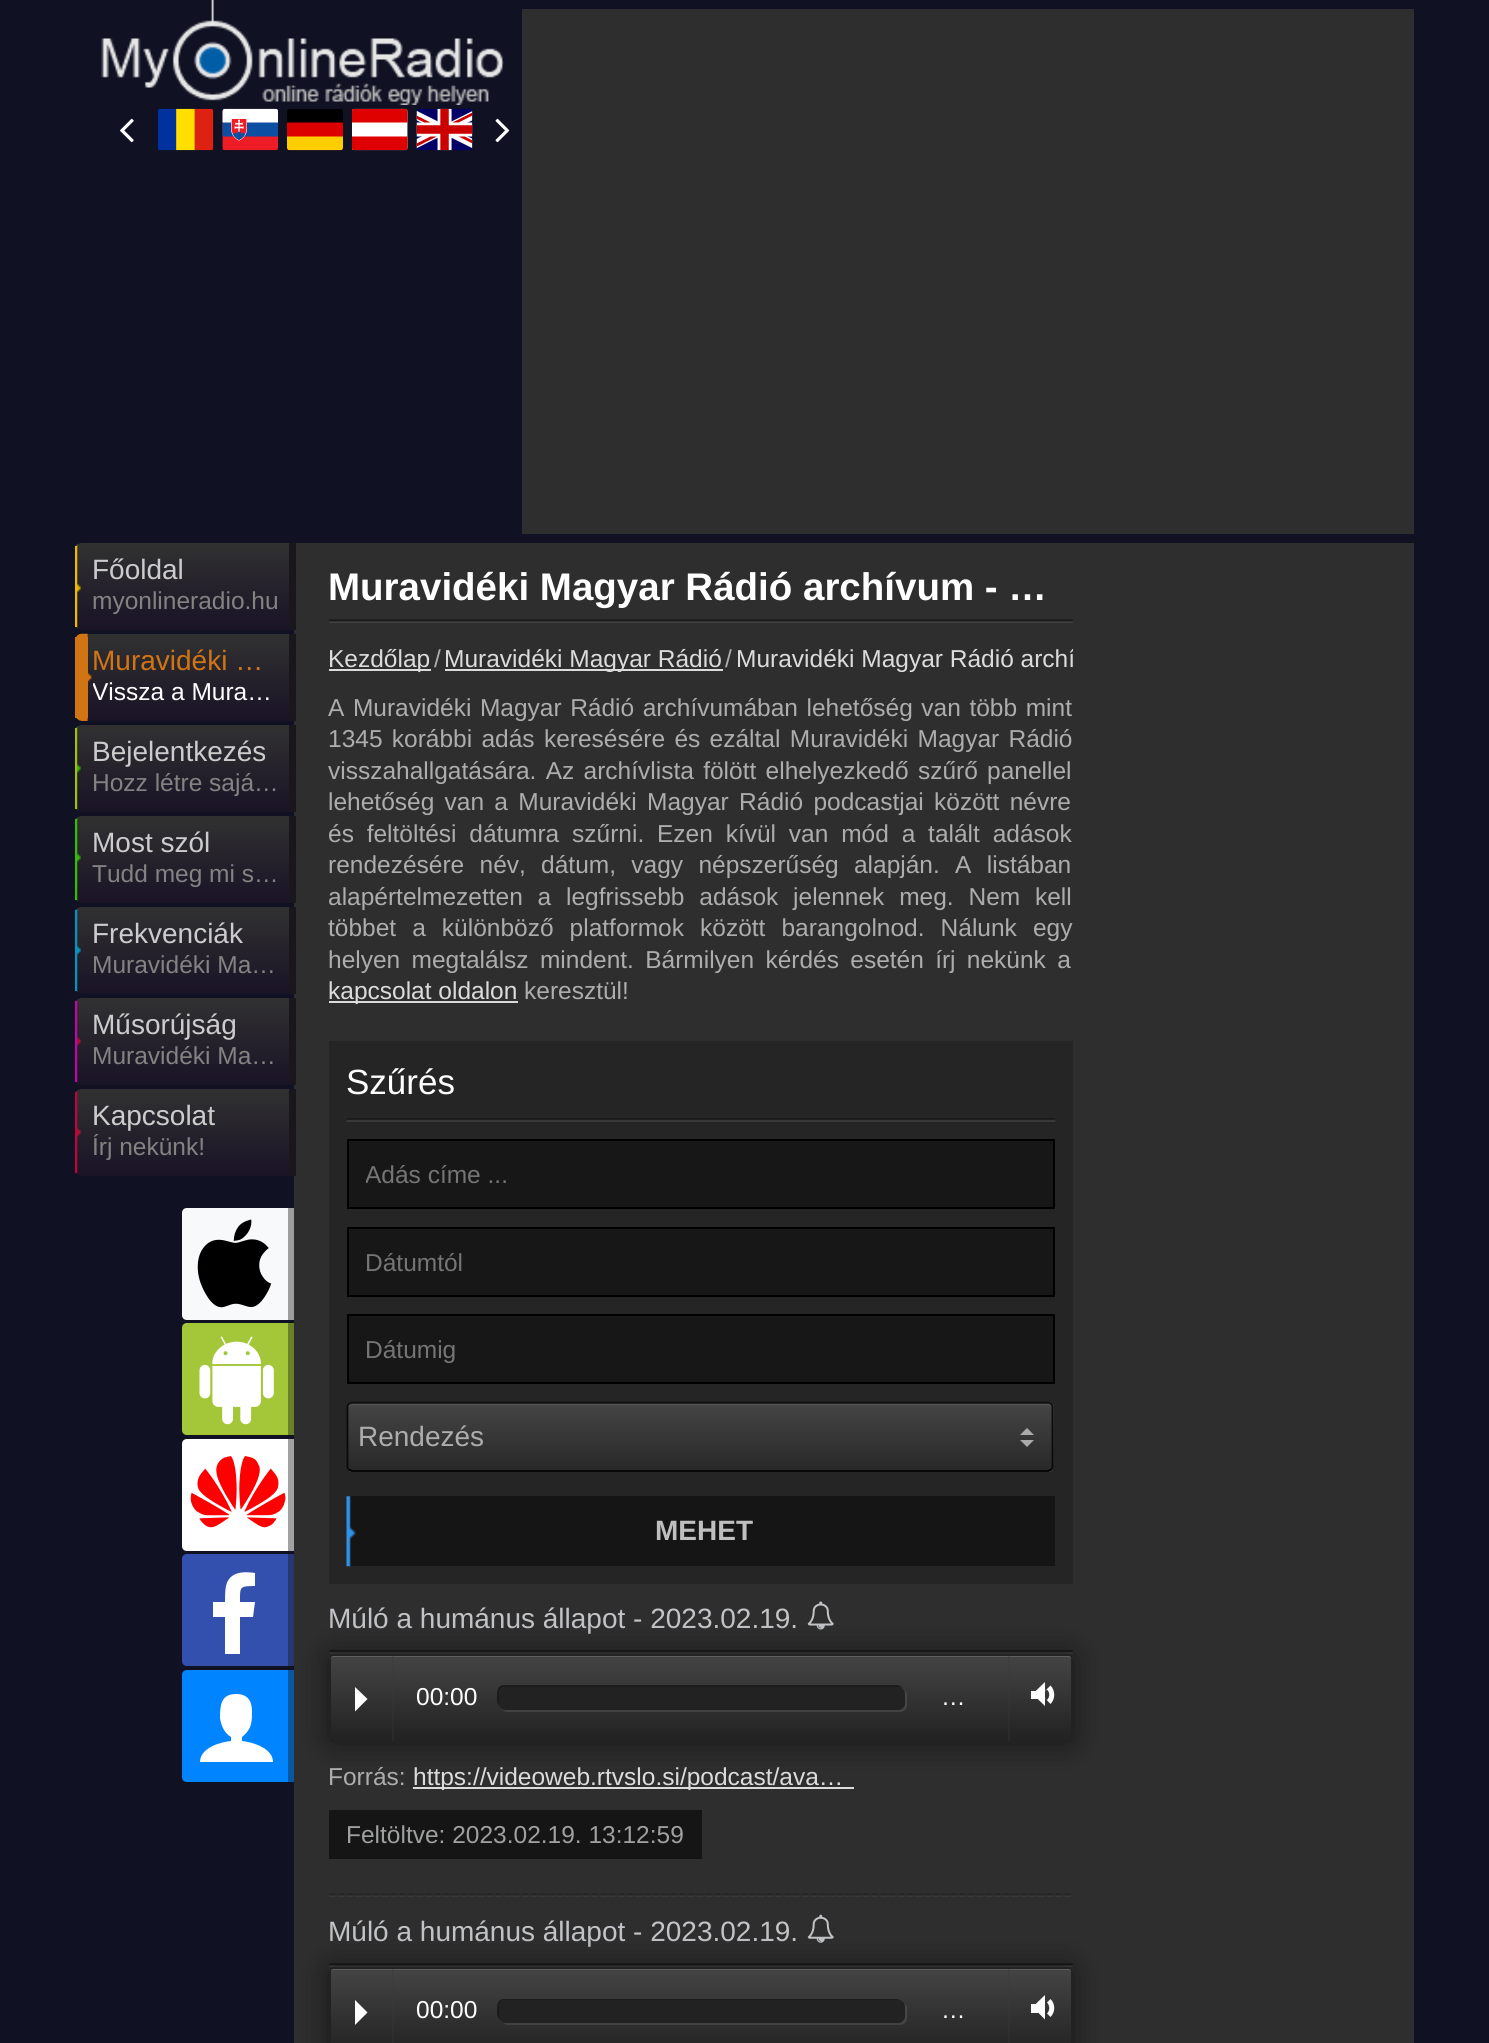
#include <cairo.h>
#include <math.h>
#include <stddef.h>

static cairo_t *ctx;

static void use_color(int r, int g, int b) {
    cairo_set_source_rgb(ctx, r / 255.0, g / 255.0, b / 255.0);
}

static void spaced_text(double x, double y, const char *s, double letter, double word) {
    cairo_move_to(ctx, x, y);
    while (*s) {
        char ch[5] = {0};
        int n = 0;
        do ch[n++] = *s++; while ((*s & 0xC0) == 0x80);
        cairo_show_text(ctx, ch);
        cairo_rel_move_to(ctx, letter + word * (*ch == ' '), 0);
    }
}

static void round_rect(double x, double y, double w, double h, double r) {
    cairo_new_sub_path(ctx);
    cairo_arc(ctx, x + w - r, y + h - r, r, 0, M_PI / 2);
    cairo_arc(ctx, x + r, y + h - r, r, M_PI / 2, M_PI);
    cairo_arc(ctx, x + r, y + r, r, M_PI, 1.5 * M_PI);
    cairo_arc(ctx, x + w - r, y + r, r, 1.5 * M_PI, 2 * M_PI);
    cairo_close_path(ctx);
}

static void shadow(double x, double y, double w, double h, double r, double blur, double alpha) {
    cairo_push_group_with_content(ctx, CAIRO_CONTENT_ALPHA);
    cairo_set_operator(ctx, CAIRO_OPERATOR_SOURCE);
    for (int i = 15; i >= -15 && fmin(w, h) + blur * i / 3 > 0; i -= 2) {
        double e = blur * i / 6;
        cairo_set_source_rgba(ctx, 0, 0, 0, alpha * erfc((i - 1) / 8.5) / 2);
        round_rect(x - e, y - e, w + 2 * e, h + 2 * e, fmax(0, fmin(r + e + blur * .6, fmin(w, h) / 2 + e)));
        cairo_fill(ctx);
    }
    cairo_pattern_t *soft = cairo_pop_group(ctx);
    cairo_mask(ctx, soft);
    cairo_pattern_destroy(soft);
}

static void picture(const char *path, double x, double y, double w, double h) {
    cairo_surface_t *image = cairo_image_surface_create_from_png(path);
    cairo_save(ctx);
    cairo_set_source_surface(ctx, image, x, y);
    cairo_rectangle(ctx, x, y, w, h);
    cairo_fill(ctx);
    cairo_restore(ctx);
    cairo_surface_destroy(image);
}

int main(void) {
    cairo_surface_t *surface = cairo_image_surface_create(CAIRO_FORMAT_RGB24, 1489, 2043);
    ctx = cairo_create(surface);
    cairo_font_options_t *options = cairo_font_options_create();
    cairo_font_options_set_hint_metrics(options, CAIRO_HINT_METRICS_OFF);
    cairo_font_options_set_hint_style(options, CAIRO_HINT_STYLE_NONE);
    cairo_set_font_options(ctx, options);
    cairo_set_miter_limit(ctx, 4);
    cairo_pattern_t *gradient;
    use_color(16, 17, 35);
    cairo_paint(ctx);
    picture("img1.png", 101, 0, 403, 105);
    picture("img2.png", 120, 118, 14, 25);
    picture("img3.png", 157, 108, 57, 43);
    picture("img4.png", 222, 108, 57, 43);
    picture("img5.png", 287, 109, 56, 42);
    picture("img6.png", 351, 108, 57, 43);
    picture("img7.png", 416, 108, 57, 43);
    picture("img8.png", 495, 118, 15, 25);
    use_color(46, 46, 46);
    cairo_rectangle(ctx, 522, 9, 892, 525);
    cairo_fill(ctx);
    cairo_rectangle(ctx, 294, 543, 1120, 1500);
    cairo_fill(ctx);
    gradient = cairo_pattern_create_linear(186, 543, 186, 630);
    cairo_pattern_add_color_stop_rgba(gradient, 0, 0.192, 0.192, 0.192, 1);
    cairo_pattern_add_color_stop_rgba(gradient, 1, 0.098, 0.075, 0.149, 1);
    cairo_set_source(ctx, gradient);
    cairo_pattern_destroy(gradient);
    cairo_new_path(ctx);
    cairo_move_to(ctx, 82, 543);
    cairo_line_to(ctx, 296, 543);
    cairo_line_to(ctx, 296, 630);
    cairo_line_to(ctx, 82, 630);
    cairo_curve_to(ctx, 78, 630, 75, 627, 75, 623);
    cairo_line_to(ctx, 75, 550);
    cairo_curve_to(ctx, 75, 546, 78, 543, 82, 543);
    cairo_close_path(ctx);
    cairo_fill(ctx);
    use_color(25, 23, 27);
    cairo_rectangle(ctx, 289, 543, 7, 87);
    cairo_fill(ctx);
    picture("img9.png", 76, 544, 5, 85);
    use_color(234, 187, 0);
    cairo_rectangle(ctx, 75, 546, 2, 81);
    cairo_fill(ctx);
    cairo_select_font_face(ctx, "Liberation Sans", CAIRO_FONT_SLANT_NORMAL, CAIRO_FONT_WEIGHT_NORMAL);
    cairo_set_font_size(ctx, 28);
    use_color(204, 204, 204);
    cairo_move_to(ctx, 92, 579);
    cairo_show_text(ctx, "Főoldal");
    cairo_set_font_size(ctx, 24.5);
    use_color(131, 131, 131);
    cairo_move_to(ctx, 92, 609);
    cairo_show_text(ctx, "myonlineradio.hu");
    gradient = cairo_pattern_create_linear(186, 634, 186, 721);
    cairo_pattern_add_color_stop_rgba(gradient, 0, 0.192, 0.192, 0.192, 1);
    cairo_pattern_add_color_stop_rgba(gradient, 1, 0.098, 0.075, 0.149, 1);
    cairo_set_source(ctx, gradient);
    cairo_pattern_destroy(gradient);
    cairo_new_path(ctx);
    cairo_move_to(ctx, 82, 634);
    cairo_line_to(ctx, 296, 634);
    cairo_line_to(ctx, 296, 721);
    cairo_line_to(ctx, 82, 721);
    cairo_curve_to(ctx, 78, 721, 75, 718, 75, 714);
    cairo_line_to(ctx, 75, 641);
    cairo_curve_to(ctx, 75, 637, 78, 634, 82, 634);
    cairo_close_path(ctx);
    cairo_fill(ctx);
    use_color(25, 23, 27);
    cairo_rectangle(ctx, 289, 634, 7, 87);
    cairo_fill(ctx);
    picture("img10.png", 76, 633, 16, 88);
    use_color(209, 117, 20);
    cairo_rectangle(ctx, 75, 637, 13, 81);
    cairo_fill(ctx);
    cairo_set_font_size(ctx, 28);
    cairo_move_to(ctx, 92, 670);
    cairo_show_text(ctx, "Muravidéki …");
    cairo_save(ctx);
    cairo_rectangle(ctx, 93, 679, 196, 26);
    cairo_clip(ctx);
    cairo_set_font_size(ctx, 24.5);
    use_color(255, 255, 255);
    cairo_move_to(ctx, 92, 700);
    cairo_show_text(ctx, "Vissza a Mura…");
    cairo_restore(ctx);
    gradient = cairo_pattern_create_linear(186, 725, 186, 812);
    cairo_pattern_add_color_stop_rgba(gradient, 0, 0.192, 0.192, 0.192, 1);
    cairo_pattern_add_color_stop_rgba(gradient, 1, 0.098, 0.075, 0.149, 1);
    cairo_set_source(ctx, gradient);
    cairo_pattern_destroy(gradient);
    cairo_new_path(ctx);
    cairo_move_to(ctx, 82, 725);
    cairo_line_to(ctx, 296, 725);
    cairo_line_to(ctx, 296, 812);
    cairo_line_to(ctx, 82, 812);
    cairo_curve_to(ctx, 78, 812, 75, 809, 75, 805);
    cairo_line_to(ctx, 75, 732);
    cairo_curve_to(ctx, 75, 728, 78, 725, 82, 725);
    cairo_close_path(ctx);
    cairo_fill(ctx);
    use_color(25, 23, 27);
    cairo_rectangle(ctx, 289, 725, 7, 87);
    cairo_fill(ctx);
    picture("img11.png", 76, 726, 5, 85);
    use_color(170, 189, 6);
    cairo_rectangle(ctx, 75, 728, 2, 81);
    cairo_fill(ctx);
    use_color(204, 204, 204);
    cairo_move_to(ctx, 92, 761);
    cairo_show_text(ctx, "Bejelentkezés");
    cairo_set_font_size(ctx, 24.5);
    use_color(131, 131, 131);
    cairo_move_to(ctx, 92, 791);
    cairo_show_text(ctx, "Hozz létre sajá…");
    gradient = cairo_pattern_create_linear(186, 816, 186, 903);
    cairo_pattern_add_color_stop_rgba(gradient, 0, 0.192, 0.192, 0.192, 1);
    cairo_pattern_add_color_stop_rgba(gradient, 1, 0.098, 0.075, 0.149, 1);
    cairo_set_source(ctx, gradient);
    cairo_pattern_destroy(gradient);
    cairo_new_path(ctx);
    cairo_move_to(ctx, 82, 816);
    cairo_line_to(ctx, 296, 816);
    cairo_line_to(ctx, 296, 903);
    cairo_line_to(ctx, 82, 903);
    cairo_curve_to(ctx, 78, 903, 75, 900, 75, 896);
    cairo_line_to(ctx, 75, 823);
    cairo_curve_to(ctx, 75, 819, 78, 816, 82, 816);
    cairo_close_path(ctx);
    cairo_fill(ctx);
    use_color(25, 23, 27);
    cairo_rectangle(ctx, 289, 816, 7, 87);
    cairo_fill(ctx);
    picture("img12.png", 76, 817, 5, 85);
    use_color(53, 189, 6);
    cairo_rectangle(ctx, 75, 819, 2, 81);
    cairo_fill(ctx);
    cairo_set_font_size(ctx, 28);
    use_color(204, 204, 204);
    cairo_move_to(ctx, 92, 852);
    cairo_show_text(ctx, "Most szól");
    cairo_set_font_size(ctx, 24.5);
    use_color(131, 131, 131);
    cairo_move_to(ctx, 92, 882);
    cairo_show_text(ctx, "Tudd meg mi s…");
    gradient = cairo_pattern_create_linear(186, 907, 186, 994);
    cairo_pattern_add_color_stop_rgba(gradient, 0, 0.192, 0.192, 0.192, 1);
    cairo_pattern_add_color_stop_rgba(gradient, 1, 0.098, 0.075, 0.149, 1);
    cairo_set_source(ctx, gradient);
    cairo_pattern_destroy(gradient);
    cairo_new_path(ctx);
    cairo_move_to(ctx, 82, 907);
    cairo_line_to(ctx, 296, 907);
    cairo_line_to(ctx, 296, 994);
    cairo_line_to(ctx, 82, 994);
    cairo_curve_to(ctx, 78, 994, 75, 991, 75, 987);
    cairo_line_to(ctx, 75, 914);
    cairo_curve_to(ctx, 75, 910, 78, 907, 82, 907);
    cairo_close_path(ctx);
    cairo_fill(ctx);
    use_color(25, 23, 27);
    cairo_rectangle(ctx, 289, 907, 7, 87);
    cairo_fill(ctx);
    picture("img13.png", 76, 908, 5, 85);
    use_color(6, 148, 189);
    cairo_rectangle(ctx, 75, 910, 2, 81);
    cairo_fill(ctx);
    cairo_set_font_size(ctx, 28);
    use_color(204, 204, 204);
    cairo_move_to(ctx, 92, 943);
    cairo_show_text(ctx, "Frekvenciák");
    cairo_set_font_size(ctx, 24.5);
    use_color(131, 131, 131);
    cairo_move_to(ctx, 92, 973);
    cairo_show_text(ctx, "Muravidéki Ma…");
    gradient = cairo_pattern_create_linear(186, 998, 186, 1085);
    cairo_pattern_add_color_stop_rgba(gradient, 0, 0.192, 0.192, 0.192, 1);
    cairo_pattern_add_color_stop_rgba(gradient, 1, 0.098, 0.075, 0.149, 1);
    cairo_set_source(ctx, gradient);
    cairo_pattern_destroy(gradient);
    cairo_new_path(ctx);
    cairo_move_to(ctx, 82, 998);
    cairo_line_to(ctx, 296, 998);
    cairo_line_to(ctx, 296, 1085);
    cairo_line_to(ctx, 82, 1085);
    cairo_curve_to(ctx, 78, 1085, 75, 1082, 75, 1078);
    cairo_line_to(ctx, 75, 1005);
    cairo_curve_to(ctx, 75, 1001, 78, 998, 82, 998);
    cairo_close_path(ctx);
    cairo_fill(ctx);
    use_color(25, 23, 27);
    cairo_rectangle(ctx, 289, 998, 7, 87);
    cairo_fill(ctx);
    picture("img14.png", 76, 999, 5, 85);
    use_color(189, 6, 178);
    cairo_rectangle(ctx, 75, 1001, 2, 81);
    cairo_fill(ctx);
    cairo_set_font_size(ctx, 28);
    use_color(204, 204, 204);
    cairo_move_to(ctx, 92, 1034);
    cairo_show_text(ctx, "Műsorújság");
    cairo_set_font_size(ctx, 24.5);
    use_color(131, 131, 131);
    cairo_move_to(ctx, 92, 1064);
    cairo_show_text(ctx, "Muravidéki Ma…");
    gradient = cairo_pattern_create_linear(186, 1089, 186, 1176);
    cairo_pattern_add_color_stop_rgba(gradient, 0, 0.192, 0.192, 0.192, 1);
    cairo_pattern_add_color_stop_rgba(gradient, 1, 0.098, 0.075, 0.149, 1);
    cairo_set_source(ctx, gradient);
    cairo_pattern_destroy(gradient);
    cairo_new_path(ctx);
    cairo_move_to(ctx, 82, 1089);
    cairo_line_to(ctx, 296, 1089);
    cairo_line_to(ctx, 296, 1176);
    cairo_line_to(ctx, 82, 1176);
    cairo_curve_to(ctx, 78, 1176, 75, 1173, 75, 1169);
    cairo_line_to(ctx, 75, 1096);
    cairo_curve_to(ctx, 75, 1092, 78, 1089, 82, 1089);
    cairo_close_path(ctx);
    cairo_fill(ctx);
    use_color(25, 23, 27);
    cairo_rectangle(ctx, 289, 1089, 7, 87);
    cairo_fill(ctx);
    picture("img14.png", 76, 1090, 5, 85);
    use_color(189, 6, 58);
    cairo_rectangle(ctx, 75, 1092, 2, 81);
    cairo_fill(ctx);
    cairo_set_font_size(ctx, 28);
    use_color(204, 204, 204);
    cairo_move_to(ctx, 92, 1125);
    cairo_show_text(ctx, "Kapcsolat");
    cairo_save(ctx);
    cairo_rectangle(ctx, 93, 1134, 196, 26);
    cairo_clip(ctx);
    cairo_set_font_size(ctx, 24.5);
    use_color(131, 131, 131);
    cairo_move_to(ctx, 92, 1155);
    cairo_show_text(ctx, "Írj nekünk!");
    cairo_restore(ctx);
    cairo_select_font_face(ctx, "Liberation Sans", CAIRO_FONT_SLANT_NORMAL, CAIRO_FONT_WEIGHT_BOLD);
    cairo_set_font_size(ctx, 38.5);
    use_color(255, 255, 255);
    cairo_move_to(ctx, 328, 600);
    cairo_show_text(ctx, "Muravidéki Magyar Rádió archívum - …");
    picture("img15.png", 329, 619, 744, 4);
    use_color(220, 220, 220);
    cairo_rectangle(ctx, 329, 669, 102, 2);
    cairo_fill(ctx);
    cairo_select_font_face(ctx, "Liberation Sans", CAIRO_FONT_SLANT_NORMAL, CAIRO_FONT_WEIGHT_NORMAL);
    cairo_set_font_size(ctx, 24.5);
    cairo_move_to(ctx, 328, 667);
    cairo_show_text(ctx, "Kezdőlap");
    use_color(173, 173, 173);
    cairo_move_to(ctx, 434, 667);
    cairo_show_text(ctx, "/");
    use_color(220, 220, 220);
    cairo_rectangle(ctx, 445, 669, 278, 2);
    cairo_fill(ctx);
    cairo_move_to(ctx, 444, 667);
    cairo_show_text(ctx, "Muravidéki Magyar Rádió");
    use_color(173, 173, 173);
    cairo_move_to(ctx, 725, 667);
    cairo_show_text(ctx, "/");
    cairo_save(ctx);
    cairo_rectangle(ctx, 735, 641, 338, 35);
    cairo_clip(ctx);
    use_color(220, 220, 220);
    cairo_move_to(ctx, 736, 667);
    cairo_show_text(ctx, "Muravidéki Magyar Rádió archí");
    cairo_restore(ctx);
    spaced_text(328, 716, "A Muravidéki Magyar Rádió archívumában lehetőség van több mint", 0, 1.75);
    spaced_text(328, 747, "1345 korábbi adás keresésére és ezáltal Muravidéki Magyar Rádió", 0, 2.5);
    spaced_text(328, 779, "visszahallgatására. Az archívlista fölött elhelyezkedő szűrő panellel", 0, 2.5);
    spaced_text(328, 810, "lehetőség van a Muravidéki Magyar Rádió podcastjai között névre", 0, 3.5);
    spaced_text(328, 842, "és feltöltési dátumra szűrni. Ezen kívül van mód a talált adások", 0, 6);
    spaced_text(328, 873, "rendezésére név, dátum, vagy népszerűség alapján. A listában", 0, 8.5);
    spaced_text(328, 905, "alapértelmezetten a legfrissebb adások jelennek meg. Nem kell", 0, 8);
    spaced_text(328, 936, "többet a különböző platformok között barangolnod. Nálunk egy", 0, 9.25);
    spaced_text(328, 968, "helyen megtalálsz mindent. Bármilyen kérdés esetén írj nekünk a", 0, 4.5);
    use_color(220, 220, 220);
    cairo_rectangle(ctx, 329, 1001, 189, 2);
    cairo_fill(ctx);
    cairo_move_to(ctx, 328, 999);
    cairo_show_text(ctx, "kapcsolat oldalon");
    use_color(173, 173, 173);
    cairo_move_to(ctx, 524, 999);
    cairo_show_text(ctx, "keresztül!");
    use_color(37, 37, 37);
    cairo_rectangle(ctx, 329, 1041, 744, 543);
    cairo_fill(ctx);
    picture("img16.png", 346, 1118, 710, 4);
    cairo_set_font_size(ctx, 35);
    use_color(255, 255, 255);
    cairo_move_to(ctx, 346, 1094);
    cairo_show_text(ctx, "Szűrés");
    use_color(23, 23, 23);
    cairo_rectangle(ctx, 348, 1140, 706, 68);
    cairo_fill_preserve(ctx);
    use_color(0, 0, 0);
    cairo_stroke(ctx);
    cairo_save(ctx);
    cairo_rectangle(ctx, 366, 1160, 670, 28);
    cairo_clip(ctx);
    cairo_set_font_size(ctx, 24.5);
    use_color(117, 117, 117);
    cairo_move_to(ctx, 365, 1183);
    cairo_show_text(ctx, "Adás címe ...");
    cairo_restore(ctx);
    use_color(23, 23, 23);
    cairo_rectangle(ctx, 348, 1228, 706, 68);
    cairo_fill_preserve(ctx);
    use_color(0, 0, 0);
    cairo_stroke(ctx);
    cairo_set_font_size(ctx, 24.5);
    use_color(117, 117, 117);
    cairo_move_to(ctx, 365, 1271);
    cairo_show_text(ctx, "Dátumtól");
    use_color(23, 23, 23);
    cairo_rectangle(ctx, 348, 1315, 706, 68);
    cairo_fill_preserve(ctx);
    use_color(0, 0, 0);
    cairo_stroke(ctx);
    use_color(117, 117, 117);
    cairo_move_to(ctx, 365, 1358);
    cairo_show_text(ctx, "Dátumig");
    use_color(68, 68, 68);
    round_rect(347, 1402, 707, 70, 5);
    cairo_fill(ctx);
    cairo_save(ctx);
    round_rect(347, 1402, 707, 70, 5);
    cairo_clip(ctx);
    gradient = cairo_pattern_create_linear(700, 1337, 700, 1404);
    cairo_pattern_add_color_stop_rgba(gradient, 0, 0, 0, 0, 0);
    cairo_pattern_add_color_stop_rgba(gradient, 1, 0, 0, 0, 0.4);
    cairo_set_source(ctx, gradient);
    cairo_pattern_destroy(gradient);
    cairo_rectangle(ctx, 347, 1402, 707, 2);
    cairo_fill(ctx);
    gradient = cairo_pattern_create_linear(700, 1404, 700, 1470);
    cairo_pattern_add_color_stop_rgba(gradient, 0, 0, 0, 0, 0);
    cairo_pattern_add_color_stop_rgba(gradient, 1, 0, 0, 0, 0.4);
    cairo_set_source(ctx, gradient);
    cairo_pattern_destroy(gradient);
    cairo_rectangle(ctx, 347, 1408, 707, 62);
    cairo_fill(ctx);
    cairo_restore(ctx);
    use_color(86, 86, 86);
    cairo_new_path(ctx);
    cairo_move_to(ctx, 352, 1405);
    cairo_line_to(ctx, 1048, 1405);
    cairo_curve_to(ctx, 1050, 1405, 1052, 1407, 1052, 1409);
    cairo_curve_to(ctx, 1052, 1406, 1051, 1404, 1048, 1404);
    cairo_line_to(ctx, 352, 1404);
    cairo_line_to(ctx, 349, 1405);
    cairo_line_to(ctx, 348, 1406);
    cairo_line_to(ctx, 348, 1409);
    cairo_curve_to(ctx, 348, 1407, 350, 1405, 352, 1405);
    cairo_close_path(ctx);
    cairo_fill(ctx);
    cairo_new_path(ctx);
    cairo_move_to(ctx, 348.5, 1404);
    cairo_line_to(ctx, 352, 1402.5);
    cairo_line_to(ctx, 1048, 1402.5);
    cairo_line_to(ctx, 1051.5, 1404);
    use_color(17, 17, 17);
    cairo_set_line_width(ctx, 1.8);
    cairo_stroke(ctx);
    cairo_new_path(ctx);
    cairo_move_to(ctx, 1051.5, 1404);
    cairo_line_to(ctx, 1052.5, 1406.5);
    cairo_line_to(ctx, 1052.5, 1467);
    cairo_line_to(ctx, 1051.5, 1469.5);
    use_color(10, 10, 10);
    cairo_stroke(ctx);
    cairo_new_path(ctx);
    cairo_move_to(ctx, 1051.5, 1469.5);
    cairo_line_to(ctx, 1048, 1471);
    cairo_line_to(ctx, 352, 1471);
    cairo_line_to(ctx, 348.5, 1469.5);
    use_color(0, 0, 0);
    cairo_stroke(ctx);
    cairo_new_path(ctx);
    cairo_move_to(ctx, 348.5, 1469.5);
    cairo_line_to(ctx, 347.5, 1467);
    cairo_line_to(ctx, 347.5, 1406.5);
    cairo_line_to(ctx, 348.5, 1404);
    use_color(10, 10, 10);
    cairo_stroke(ctx);
    cairo_set_font_size(ctx, 28);
    use_color(173, 173, 173);
    cairo_move_to(ctx, 358, 1446);
    cairo_show_text(ctx, "Rendezés");
    use_color(170, 170, 170);
    cairo_new_path(ctx);
    cairo_move_to(ctx, 1034, 1435);
    cairo_line_to(ctx, 1020, 1435);
    cairo_line_to(ctx, 1027, 1428);
    cairo_close_path(ctx);
    cairo_move_to(ctx, 1020, 1440);
    cairo_line_to(ctx, 1034, 1440);
    cairo_line_to(ctx, 1027, 1447);
    cairo_close_path(ctx);
    cairo_fill(ctx);
    use_color(21, 21, 21);
    cairo_rectangle(ctx, 347, 1496, 708, 70);
    cairo_fill(ctx);
    picture("img17.png", 346, 1496, 10, 71);
    cairo_select_font_face(ctx, "Liberation Sans", CAIRO_FONT_SLANT_NORMAL, CAIRO_FONT_WEIGHT_BOLD);
    use_color(191, 191, 191);
    cairo_move_to(ctx, 655, 1540);
    cairo_show_text(ctx, "MEHET");
    picture("img18.png", 329, 1650, 744, 4);
    cairo_select_font_face(ctx, "Liberation Sans", CAIRO_FONT_SLANT_NORMAL, CAIRO_FONT_WEIGHT_NORMAL);
    use_color(195, 196, 199);
    cairo_move_to(ctx, 328, 1628);
    cairo_show_text(ctx, "Múló a humánus állapot - 2023.02.19.");
    picture("img19.png", 807, 1601, 27, 29);
    use_color(220, 220, 220);
    cairo_rectangle(ctx, 413, 1787, 441, 2);
    cairo_fill(ctx);
    use_color(51, 80, 174);
    cairo_new_path(ctx);
    cairo_move_to(ctx, 187, 1554);
    cairo_line_to(ctx, 294, 1554);
    cairo_line_to(ctx, 294, 1666);
    cairo_line_to(ctx, 187, 1666);
    cairo_curve_to(ctx, 184, 1666, 182, 1664, 182, 1661);
    cairo_line_to(ctx, 182, 1559);
    cairo_curve_to(ctx, 182, 1556, 184, 1554, 187, 1554);
    cairo_close_path(ctx);
    cairo_fill(ctx);
    use_color(39, 56, 112);
    cairo_rectangle(ctx, 288, 1554, 6, 112);
    cairo_fill(ctx);
    use_color(0, 132, 255);
    cairo_new_path(ctx);
    cairo_move_to(ctx, 187, 1670);
    cairo_line_to(ctx, 294, 1670);
    cairo_line_to(ctx, 294, 1782);
    cairo_line_to(ctx, 187, 1782);
    cairo_curve_to(ctx, 184, 1782, 182, 1780, 182, 1777);
    cairo_line_to(ctx, 182, 1675);
    cairo_curve_to(ctx, 182, 1672, 184, 1670, 187, 1670);
    cairo_close_path(ctx);
    cairo_fill(ctx);
    use_color(8, 87, 161);
    cairo_rectangle(ctx, 288, 1670, 6, 112);
    cairo_fill(ctx);
    use_color(0, 0, 0);
    shadow(329, 1654, 744, 89, 4, 15.5, 0.5);
    cairo_save(ctx);
    round_rect(329, 1654, 744, 89, 4);
    cairo_clip(ctx);
    gradient = cairo_pattern_create_linear(701, 1656, 701, 1741);
    cairo_pattern_add_color_stop_rgba(gradient, 0, 0.267, 0.267, 0.267, 1);
    cairo_pattern_add_color_stop_rgba(gradient, 1, 0.133, 0.133, 0.133, 1);
    cairo_set_source(ctx, gradient);
    cairo_pattern_destroy(gradient);
    cairo_rectangle(ctx, 329, 1656, 744, 85);
    cairo_fill(ctx);
    cairo_restore(ctx);
    use_color(96, 96, 96);
    cairo_new_path(ctx);
    cairo_move_to(ctx, 332, 1657);
    cairo_line_to(ctx, 1069, 1657);
    cairo_curve_to(ctx, 1070, 1657, 1071, 1658, 1071, 1659);
    cairo_curve_to(ctx, 1071, 1658, 1071, 1656, 1069, 1656);
    cairo_line_to(ctx, 333, 1656);
    cairo_curve_to(ctx, 331, 1656, 331, 1658, 331, 1659);
    cairo_close_path(ctx);
    cairo_fill(ctx);
    round_rect(330, 1655, 742, 87, 3);
    use_color(34, 34, 34);
    cairo_set_line_width(ctx, 2);
    cairo_stroke(ctx);
    cairo_set_source_rgba(ctx, 1, 1, 1, 0.1);
    cairo_rectangle(ctx, 392, 1656, 2, 85);
    cairo_fill(ctx);
    use_color(255, 255, 255);
    cairo_new_path(ctx);
    cairo_move_to(ctx, 355, 1711.5);
    cairo_line_to(ctx, 355, 1687);
    cairo_line_to(ctx, 367.5, 1699);
    cairo_close_path(ctx);
    cairo_fill(ctx);
    cairo_set_source_rgba(ctx, 0, 0, 0, 0.25);
    cairo_rectangle(ctx, 392, 1656, 2, 85);
    cairo_fill(ctx);
    cairo_set_font_size(ctx, 24.5);
    use_color(255, 255, 255);
    cairo_move_to(ctx, 416, 1705);
    cairo_show_text(ctx, "00:00");
    cairo_set_source_rgba(ctx, 1, 1, 1, 0.1);
    cairo_new_path(ctx);
    cairo_move_to(ctx, 502, 1709);
    cairo_curve_to(ctx, 503, 1711, 505, 1712, 508, 1712);
    cairo_line_to(ctx, 900, 1712);
    cairo_curve_to(ctx, 904, 1712, 907, 1709, 907, 1705);
    cairo_line_to(ctx, 907, 1696);
    cairo_curve_to(ctx, 907, 1693, 906, 1691, 903, 1690);
    cairo_curve_to(ctx, 904, 1691, 905, 1692, 905, 1694);
    cairo_line_to(ctx, 905, 1703);
    cairo_curve_to(ctx, 905, 1707, 902, 1710, 898, 1710);
    cairo_line_to(ctx, 506, 1710);
    cairo_curve_to(ctx, 504, 1710, 503, 1709, 502, 1709);
    cairo_close_path(ctx);
    cairo_fill(ctx);
    cairo_set_source_rgba(ctx, 0, 0, 0, 0.5);
    cairo_new_path(ctx);
    cairo_move_to(ctx, 504, 1685);
    cairo_curve_to(ctx, 497, 1685, 497, 1692, 497, 1696);
    cairo_curve_to(ctx, 497, 1700, 497, 1704, 500, 1707);
    cairo_curve_to(ctx, 499, 1706, 499, 1704, 499, 1703);
    cairo_line_to(ctx, 499, 1694);
    cairo_curve_to(ctx, 499, 1690, 502, 1687, 506, 1687);
    cairo_line_to(ctx, 898, 1687);
    cairo_curve_to(ctx, 899, 1687, 901, 1688, 902, 1688);
    cairo_curve_to(ctx, 901, 1686, 899, 1685, 896, 1685);
    cairo_close_path(ctx);
    cairo_fill(ctx);
    use_color(34, 34, 34);
    round_rect(499, 1687, 406, 23, 7);
    cairo_fill(ctx);
    cairo_set_source_rgba(ctx, 1, 1, 1, 0.1);
    cairo_rectangle(ctx, 1008, 1656, 2, 85);
    cairo_fill(ctx);
    use_color(255, 255, 255);
    cairo_move_to(ctx, 941, 1705);
    cairo_show_text(ctx, "…");
    cairo_set_source_rgba(ctx, 0, 0, 0, 0.25);
    cairo_rectangle(ctx, 1008, 1656, 2, 85);
    cairo_fill(ctx);
    use_color(255, 255, 255);
    cairo_rectangle(ctx, 1031, 1691, 7, 8);
    cairo_fill(ctx);
    cairo_set_fill_rule(ctx, CAIRO_FILL_RULE_EVEN_ODD);
    cairo_new_path(ctx);
    cairo_move_to(ctx, 1050.5, 1685.5);
    cairo_curve_to(ctx, 1055.5, 1690.5, 1055.5, 1699, 1050.5, 1704);
    cairo_line_to(ctx, 1041.5, 1694.5);
    cairo_close_path(ctx);
    cairo_move_to(ctx, 1047, 1689.5);
    cairo_curve_to(ctx, 1050, 1692.5, 1050, 1697, 1047, 1700);
    cairo_line_to(ctx, 1041.5, 1694.5);
    cairo_close_path(ctx);
    cairo_fill(ctx);
    cairo_set_fill_rule(ctx, CAIRO_FILL_RULE_WINDING);
    cairo_new_path(ctx);
    cairo_move_to(ctx, 1045, 1682);
    cairo_line_to(ctx, 1045, 1706);
    cairo_line_to(ctx, 1032.5, 1694);
    cairo_close_path(ctx);
    cairo_fill(ctx);
    use_color(173, 173, 173);
    cairo_move_to(ctx, 328, 1785);
    cairo_show_text(ctx, "Forrás:");
    use_color(220, 220, 220);
    cairo_move_to(ctx, 413, 1785);
    cairo_show_text(ctx, "https://videoweb.rtvslo.si/podcast/ava…");
    use_color(21, 21, 21);
    cairo_rectangle(ctx, 329, 1810, 373, 49);
    cairo_fill(ctx);
    use_color(159, 160, 161);
    cairo_move_to(ctx, 346, 1843);
    cairo_show_text(ctx, "Feltöltve: 2023.02.19. 13:12:59");
    picture("img20.png", 329, 1893, 742, 4);
    picture("img15.png", 329, 1963, 744, 4);
    cairo_set_font_size(ctx, 28);
    use_color(195, 196, 199);
    cairo_move_to(ctx, 328, 1941);
    cairo_show_text(ctx, "Múló a humánus állapot - 2023.02.19.");
    picture("img21.png", 807, 1914, 27, 29);
    use_color(0, 0, 0);
    shadow(329, 1967, 744, 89, 4, 15.5, 0.5);
    gradient = cairo_pattern_create_linear(701, 1969, 701, 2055);
    cairo_pattern_add_color_stop_rgba(gradient, 0, 0.267, 0.267, 0.267, 1);
    cairo_pattern_add_color_stop_rgba(gradient, 1, 0.133, 0.133, 0.133, 1);
    cairo_set_source(ctx, gradient);
    cairo_pattern_destroy(gradient);
    cairo_rectangle(ctx, 329, 1969, 744, 74);
    cairo_fill(ctx);
    use_color(96, 96, 96);
    cairo_new_path(ctx);
    cairo_move_to(ctx, 332, 1970);
    cairo_line_to(ctx, 1069, 1970);
    cairo_curve_to(ctx, 1070, 1970, 1071, 1971, 1071, 1972);
    cairo_curve_to(ctx, 1071, 1971, 1071, 1969, 1069, 1969);
    cairo_line_to(ctx, 333, 1969);
    cairo_curve_to(ctx, 331, 1969, 331, 1971, 331, 1972);
    cairo_close_path(ctx);
    cairo_fill(ctx);
    round_rect(330, 1968, 742, 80, 3);
    use_color(34, 34, 34);
    cairo_stroke(ctx);
    cairo_set_source_rgba(ctx, 1, 1, 1, 0.1);
    cairo_rectangle(ctx, 392, 1969, 2, 74);
    cairo_fill(ctx);
    use_color(255, 255, 255);
    cairo_new_path(ctx);
    cairo_move_to(ctx, 355, 2025);
    cairo_line_to(ctx, 355, 2000);
    cairo_line_to(ctx, 367.5, 2012.5);
    cairo_close_path(ctx);
    cairo_fill(ctx);
    cairo_set_source_rgba(ctx, 0, 0, 0, 0.25);
    cairo_rectangle(ctx, 392, 1969, 2, 74);
    cairo_fill(ctx);
    cairo_set_font_size(ctx, 24.5);
    use_color(255, 255, 255);
    cairo_move_to(ctx, 416, 2018);
    cairo_show_text(ctx, "00:00");
    cairo_set_source_rgba(ctx, 1, 1, 1, 0.1);
    cairo_new_path(ctx);
    cairo_move_to(ctx, 502, 2022);
    cairo_curve_to(ctx, 504, 2024, 506, 2025, 508, 2025);
    cairo_line_to(ctx, 900, 2025);
    cairo_curve_to(ctx, 904, 2025, 907, 2022, 907, 2018);
    cairo_line_to(ctx, 907, 2009);
    cairo_curve_to(ctx, 907, 2006, 905, 2004, 903, 2003);
    cairo_curve_to(ctx, 905, 2005, 905, 2009, 905, 2012);
    cairo_curve_to(ctx, 905, 2017, 904, 2023, 898, 2023);
    cairo_line_to(ctx, 506, 2023);
    cairo_close_path(ctx);
    cairo_fill(ctx);
    cairo_set_source_rgba(ctx, 0, 0, 0, 0.5);
    cairo_new_path(ctx);
    cairo_move_to(ctx, 504, 1999);
    cairo_curve_to(ctx, 497, 1999, 497, 2006, 497, 2011);
    cairo_curve_to(ctx, 497, 2014, 497, 2017, 500, 2020);
    cairo_line_to(ctx, 499, 2016);
    cairo_line_to(ctx, 499, 2007);
    cairo_curve_to(ctx, 499, 2003, 502, 2000, 506, 2000);
    cairo_line_to(ctx, 898, 2000);
    cairo_line_to(ctx, 901, 2001);
    cairo_curve_to(ctx, 900, 2000, 898, 1999, 896, 1999);
    cairo_close_path(ctx);
    cairo_fill(ctx);
    use_color(34, 34, 34);
    round_rect(499, 2000, 406, 23, 7);
    cairo_fill(ctx);
    cairo_set_source_rgba(ctx, 1, 1, 1, 0.1);
    cairo_rectangle(ctx, 1008, 1969, 2, 74);
    cairo_fill(ctx);
    use_color(255, 255, 255);
    cairo_move_to(ctx, 941, 2018);
    cairo_show_text(ctx, "…");
    cairo_set_source_rgba(ctx, 0, 0, 0, 0.25);
    cairo_rectangle(ctx, 1008, 1969, 2, 74);
    cairo_fill(ctx);
    use_color(255, 255, 255);
    cairo_rectangle(ctx, 1031, 2004, 7, 9);
    cairo_fill(ctx);
    cairo_new_path(ctx);
    cairo_move_to(ctx, 1045, 1995);
    cairo_line_to(ctx, 1045, 2019.5);
    cairo_line_to(ctx, 1032.5, 2007);
    cairo_close_path(ctx);
    cairo_fill(ctx);
    cairo_set_fill_rule(ctx, CAIRO_FILL_RULE_EVEN_ODD);
    cairo_new_path(ctx);
    cairo_move_to(ctx, 1050.5, 1999);
    cairo_curve_to(ctx, 1055.5, 2004, 1055.5, 2012, 1050.5, 2017);
    cairo_line_to(ctx, 1041.5, 2008);
    cairo_close_path(ctx);
    cairo_move_to(ctx, 1047, 2002.5);
    cairo_curve_to(ctx, 1050, 2005.5, 1050, 2010.5, 1047, 2013.5);
    cairo_line_to(ctx, 1041.5, 2008);
    cairo_close_path(ctx);
    cairo_fill(ctx);
    use_color(248, 249, 250);
    cairo_new_path(ctx);
    cairo_move_to(ctx, 187, 1208);
    cairo_line_to(ctx, 294, 1208);
    cairo_line_to(ctx, 294, 1320);
    cairo_line_to(ctx, 187, 1320);
    cairo_curve_to(ctx, 184, 1320, 182, 1318, 182, 1315);
    cairo_line_to(ctx, 182, 1213);
    cairo_curve_to(ctx, 182, 1210, 184, 1208, 187, 1208);
    cairo_close_path(ctx);
    cairo_fill(ctx);
    picture("img22.png", 197, 1219, 75, 89);
    use_color(157, 157, 158);
    cairo_rectangle(ctx, 288, 1208, 6, 112);
    cairo_fill(ctx);
    use_color(164, 198, 57);
    cairo_new_path(ctx);
    cairo_move_to(ctx, 187, 1323);
    cairo_line_to(ctx, 294, 1323);
    cairo_line_to(ctx, 294, 1435);
    cairo_line_to(ctx, 187, 1435);
    cairo_curve_to(ctx, 184, 1435, 182, 1433, 182, 1430);
    cairo_line_to(ctx, 182, 1328);
    cairo_curve_to(ctx, 182, 1325, 184, 1323, 187, 1323);
    cairo_close_path(ctx);
    cairo_fill(ctx);
    picture("img23.png", 199, 1336, 75, 89);
    use_color(106, 127, 42);
    cairo_rectangle(ctx, 288, 1323, 6, 112);
    cairo_fill(ctx);
    use_color(255, 255, 255);
    cairo_new_path(ctx);
    cairo_move_to(ctx, 187, 1439);
    cairo_line_to(ctx, 294, 1439);
    cairo_line_to(ctx, 294, 1551);
    cairo_line_to(ctx, 187, 1551);
    cairo_curve_to(ctx, 184, 1551, 182, 1549, 182, 1546);
    cairo_line_to(ctx, 182, 1444);
    cairo_curve_to(ctx, 182, 1441, 184, 1439, 187, 1439);
    cairo_close_path(ctx);
    cairo_fill(ctx);
    picture("img24.png", 190, 1456, 96, 72);
    use_color(161, 161, 161);
    cairo_rectangle(ctx, 288, 1439, 6, 112);
    cairo_fill(ctx);
    use_color(255, 255, 255);
    cairo_set_fill_rule(ctx, CAIRO_FILL_RULE_WINDING);
    cairo_new_path(ctx);
    cairo_move_to(ctx, 255, 1573);
    cairo_line_to(ctx, 255, 1586);
    cairo_curve_to(ctx, 239, 1586, 240, 1587, 240, 1602);
    cairo_line_to(ctx, 255, 1602);
    cairo_line_to(ctx, 253, 1617);
    cairo_line_to(ctx, 240, 1617);
    cairo_line_to(ctx, 240, 1654);
    cairo_line_to(ctx, 225, 1654);
    cairo_line_to(ctx, 225, 1617);
    cairo_line_to(ctx, 213, 1617);
    cairo_line_to(ctx, 213, 1602);
    cairo_line_to(ctx, 225, 1602);
    cairo_curve_to(ctx, 225, 1597, 225, 1591, 226, 1586);
    cairo_curve_to(ctx, 229, 1572, 243, 1571, 255, 1573);
    cairo_close_path(ctx);
    cairo_fill(ctx);
    cairo_new_path(ctx);
    cairo_move_to(ctx, 242, 1741);
    cairo_line_to(ctx, 242, 1737);
    cairo_curve_to(ctx, 246, 1734, 250, 1729, 251, 1724);
    cairo_curve_to(ctx, 252, 1720, 252, 1716, 252, 1712);
    cairo_curve_to(ctx, 252, 1701, 248, 1694, 236, 1694);
    cairo_curve_to(ctx, 221, 1694, 220, 1705, 220, 1718);
    cairo_curve_to(ctx, 221, 1725, 224, 1733, 231, 1737);
    cairo_line_to(ctx, 231, 1741);
    cairo_curve_to(ctx, 220, 1742, 200, 1748, 200, 1762);
    cairo_line_to(ctx, 273, 1762);
    cairo_curve_to(ctx, 273, 1748, 252, 1742, 242, 1741);
    cairo_close_path(ctx);
    cairo_fill(ctx);
    cairo_surface_write_to_png(surface, "result.png");
    cairo_font_options_destroy(options);
    cairo_destroy(ctx);
    cairo_surface_destroy(surface);
    return 0;
}
